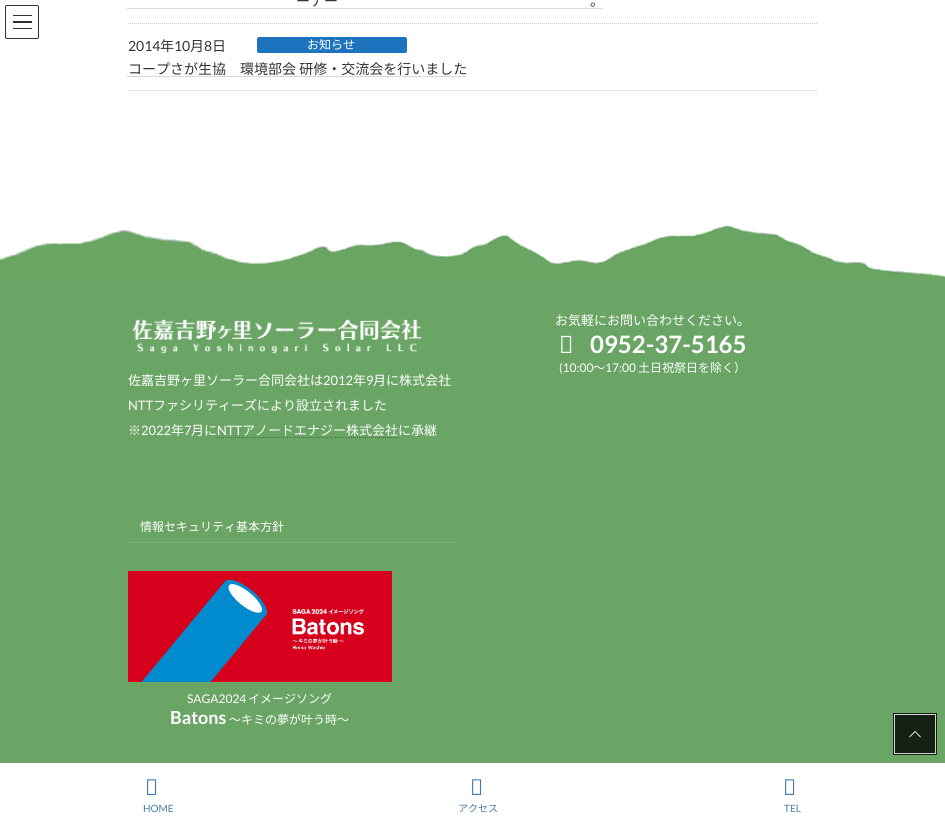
#include <cairo.h>
#include <math.h>
#include <stddef.h>

static cairo_t *ctx;

static void use_color(int r, int g, int b) {
    cairo_set_source_rgb(ctx, r / 255.0, g / 255.0, b / 255.0);
}

static void round_rect(double x, double y, double w, double h, double r) {
    cairo_new_sub_path(ctx);
    cairo_arc(ctx, x + w - r, y + h - r, r, 0, M_PI / 2);
    cairo_arc(ctx, x + r, y + h - r, r, M_PI / 2, M_PI);
    cairo_arc(ctx, x + r, y + r, r, M_PI, 1.5 * M_PI);
    cairo_arc(ctx, x + w - r, y + r, r, 1.5 * M_PI, 2 * M_PI);
    cairo_close_path(ctx);
}

static void picture(const char *path, double x, double y, double w, double h) {
    cairo_surface_t *image = cairo_image_surface_create_from_png(path);
    cairo_save(ctx);
    cairo_set_source_surface(ctx, image, x, y);
    cairo_rectangle(ctx, x, y, w, h);
    cairo_fill(ctx);
    cairo_restore(ctx);
    cairo_surface_destroy(image);
}

int main(void) {
    cairo_surface_t *surface = cairo_image_surface_create(CAIRO_FORMAT_RGB24, 945, 825);
    ctx = cairo_create(surface);
    cairo_font_options_t *options = cairo_font_options_create();
    cairo_font_options_set_hint_metrics(options, CAIRO_HINT_METRICS_OFF);
    cairo_font_options_set_hint_style(options, CAIRO_HINT_STYLE_NONE);
    cairo_set_font_options(ctx, options);
    cairo_set_miter_limit(ctx, 4);
    use_color(255, 255, 255);
    cairo_paint(ctx);
    use_color(51, 51, 51);
    cairo_rectangle(ctx, 13, 15, 19, 1);
    cairo_fill(ctx);
    cairo_rectangle(ctx, 13, 21, 19, 2);
    cairo_fill(ctx);
    cairo_rectangle(ctx, 13, 28, 19, 1);
    cairo_fill(ctx);
    round_rect(5.5, 5.5, 33, 33, 1.5);
    cairo_set_line_width(ctx, 1);
    cairo_stroke(ctx);
    cairo_new_path(ctx);
    cairo_move_to(ctx, 128, 23.5);
    cairo_line_to(ctx, 818, 23.5);
    use_color(204, 204, 204);
    cairo_set_dash(ctx, (double[]){1, 1}, 2, 0);
    cairo_stroke(ctx);
    cairo_select_font_face(ctx, "Noto Sans JP", CAIRO_FONT_SLANT_NORMAL, CAIRO_FONT_WEIGHT_NORMAL);
    cairo_set_font_size(ctx, 14);
    use_color(51, 51, 51);
    cairo_move_to(ctx, 296, 6);
    cairo_show_text(ctx, "ーナー");
    cairo_move_to(ctx, 590, 6);
    cairo_show_text(ctx, "。");
    cairo_new_path(ctx);
    cairo_move_to(ctx, 127.5, 8.5);
    cairo_line_to(ctx, 603.5, 8.5);
    use_color(179, 179, 179);
    cairo_stroke(ctx);
    cairo_new_path(ctx);
    cairo_move_to(ctx, 128, 90.5);
    cairo_line_to(ctx, 818, 90.5);
    use_color(204, 204, 204);
    cairo_stroke(ctx);
    cairo_select_font_face(ctx, "Lato", CAIRO_FONT_SLANT_NORMAL, CAIRO_FONT_WEIGHT_NORMAL);
    use_color(51, 51, 51);
    cairo_move_to(ctx, 128, 51);
    cairo_show_text(ctx, "2014");
    cairo_select_font_face(ctx, "Noto Sans JP", CAIRO_FONT_SLANT_NORMAL, CAIRO_FONT_WEIGHT_NORMAL);
    cairo_move_to(ctx, 160, 51);
    cairo_show_text(ctx, "年");
    cairo_select_font_face(ctx, "Lato", CAIRO_FONT_SLANT_NORMAL, CAIRO_FONT_WEIGHT_NORMAL);
    cairo_move_to(ctx, 174, 51);
    cairo_show_text(ctx, "10");
    cairo_select_font_face(ctx, "Noto Sans JP", CAIRO_FONT_SLANT_NORMAL, CAIRO_FONT_WEIGHT_NORMAL);
    cairo_move_to(ctx, 190, 51);
    cairo_show_text(ctx, "月");
    cairo_select_font_face(ctx, "Lato", CAIRO_FONT_SLANT_NORMAL, CAIRO_FONT_WEIGHT_NORMAL);
    cairo_move_to(ctx, 204, 51);
    cairo_show_text(ctx, "8");
    cairo_select_font_face(ctx, "Noto Sans JP", CAIRO_FONT_SLANT_NORMAL, CAIRO_FONT_WEIGHT_NORMAL);
    cairo_move_to(ctx, 212, 51);
    cairo_show_text(ctx, "日");
    use_color(30, 115, 190);
    round_rect(257, 37, 150, 16, 2);
    cairo_fill(ctx);
    cairo_set_font_size(ctx, 12);
    use_color(255, 255, 255);
    cairo_move_to(ctx, 307, 49);
    cairo_show_text(ctx, "お知らせ");
    cairo_set_font_size(ctx, 14);
    use_color(51, 51, 51);
    cairo_move_to(ctx, 128, 74);
    cairo_show_text(ctx, "コープさが生協　環境部会 研修・交流会を行いました");
    cairo_new_path(ctx);
    cairo_move_to(ctx, 127.5, 76.5);
    cairo_line_to(ctx, 466, 76.5);
    use_color(179, 179, 179);
    cairo_stroke(ctx);
    use_color(106, 165, 101);
    cairo_rectangle(ctx, 0, 279, 945, 484);
    cairo_fill(ctx);
    picture("img1.png", 0, 215, 945, 64);
    cairo_set_font_size(ctx, 13);
    use_color(255, 255, 255);
    cairo_move_to(ctx, 555, 325);
    cairo_show_text(ctx, "お気軽にお問い合わせください。");
    picture("img2.png", 561, 335, 11, 18);
    cairo_select_font_face(ctx, "Lato", CAIRO_FONT_SLANT_NORMAL, CAIRO_FONT_WEIGHT_BOLD);
    cairo_set_font_size(ctx, 24);
    cairo_move_to(ctx, 590, 353);
    cairo_show_text(ctx, "0952-37-5165");
    cairo_select_font_face(ctx, "Lato", CAIRO_FONT_SLANT_NORMAL, CAIRO_FONT_WEIGHT_NORMAL);
    cairo_set_font_size(ctx, 12);
    cairo_move_to(ctx, 559, 372);
    cairo_show_text(ctx, "(10:00");
    cairo_select_font_face(ctx, "Noto Sans JP", CAIRO_FONT_SLANT_NORMAL, CAIRO_FONT_WEIGHT_NORMAL);
    cairo_move_to(ctx, 593, 372);
    cairo_show_text(ctx, "～");
    cairo_select_font_face(ctx, "Lato", CAIRO_FONT_SLANT_NORMAL, CAIRO_FONT_WEIGHT_NORMAL);
    cairo_move_to(ctx, 605, 372);
    cairo_show_text(ctx, "17:00");
    cairo_select_font_face(ctx, "Noto Sans JP", CAIRO_FONT_SLANT_NORMAL, CAIRO_FONT_WEIGHT_NORMAL);
    cairo_move_to(ctx, 638, 372);
    cairo_show_text(ctx, "土日祝祭日を除く）");
    picture("img3.png", 132, 319, 290, 35);
    cairo_set_font_size(ctx, 13);
    cairo_move_to(ctx, 128, 385);
    cairo_show_text(ctx, "佐嘉吉野ヶ里ソーラー合同会社は");
    cairo_select_font_face(ctx, "Lato", CAIRO_FONT_SLANT_NORMAL, CAIRO_FONT_WEIGHT_NORMAL);
    cairo_move_to(ctx, 323, 385);
    cairo_show_text(ctx, "2012");
    cairo_select_font_face(ctx, "Noto Sans JP", CAIRO_FONT_SLANT_NORMAL, CAIRO_FONT_WEIGHT_NORMAL);
    cairo_move_to(ctx, 353, 385);
    cairo_show_text(ctx, "年");
    cairo_select_font_face(ctx, "Lato", CAIRO_FONT_SLANT_NORMAL, CAIRO_FONT_WEIGHT_NORMAL);
    cairo_move_to(ctx, 366, 385);
    cairo_show_text(ctx, "9");
    cairo_select_font_face(ctx, "Noto Sans JP", CAIRO_FONT_SLANT_NORMAL, CAIRO_FONT_WEIGHT_NORMAL);
    cairo_move_to(ctx, 373, 385);
    cairo_show_text(ctx, "月に株式会社");
    cairo_select_font_face(ctx, "Lato", CAIRO_FONT_SLANT_NORMAL, CAIRO_FONT_WEIGHT_NORMAL);
    cairo_move_to(ctx, 128, 410);
    cairo_show_text(ctx, "NTT");
    cairo_select_font_face(ctx, "Noto Sans JP", CAIRO_FONT_SLANT_NORMAL, CAIRO_FONT_WEIGHT_NORMAL);
    cairo_move_to(ctx, 153, 410);
    cairo_show_text(ctx, "ファシリティーズにより設立されました");
    cairo_move_to(ctx, 128, 435);
    cairo_show_text(ctx, "※");
    cairo_select_font_face(ctx, "Lato", CAIRO_FONT_SLANT_NORMAL, CAIRO_FONT_WEIGHT_NORMAL);
    cairo_move_to(ctx, 141, 435);
    cairo_show_text(ctx, "2022");
    cairo_select_font_face(ctx, "Noto Sans JP", CAIRO_FONT_SLANT_NORMAL, CAIRO_FONT_WEIGHT_NORMAL);
    cairo_move_to(ctx, 171, 435);
    cairo_show_text(ctx, "年");
    cairo_select_font_face(ctx, "Lato", CAIRO_FONT_SLANT_NORMAL, CAIRO_FONT_WEIGHT_NORMAL);
    cairo_move_to(ctx, 184, 435);
    cairo_show_text(ctx, "7");
    cairo_select_font_face(ctx, "Noto Sans JP", CAIRO_FONT_SLANT_NORMAL, CAIRO_FONT_WEIGHT_NORMAL);
    cairo_move_to(ctx, 191, 435);
    cairo_show_text(ctx, "月に");
    cairo_select_font_face(ctx, "Lato", CAIRO_FONT_SLANT_NORMAL, CAIRO_FONT_WEIGHT_NORMAL);
    cairo_move_to(ctx, 217, 435);
    cairo_show_text(ctx, "NTT");
    cairo_select_font_face(ctx, "Noto Sans JP", CAIRO_FONT_SLANT_NORMAL, CAIRO_FONT_WEIGHT_NORMAL);
    cairo_move_to(ctx, 242, 435);
    cairo_show_text(ctx, "アノードエナジー株式会社に承継");
    cairo_new_path(ctx);
    cairo_move_to(ctx, 217, 437.5);
    cairo_line_to(ctx, 398.5, 437.5);
    use_color(74, 116, 71);
    cairo_stroke(ctx);
    use_color(121, 174, 116);
    cairo_rectangle(ctx, 128, 542, 330, 1);
    cairo_fill(ctx);
    cairo_set_font_size(ctx, 12);
    use_color(255, 255, 255);
    cairo_move_to(ctx, 140, 531);
    cairo_show_text(ctx, "情報セキュリティ基本方針");
    picture("img4.png", 128, 571, 264, 111);
    cairo_select_font_face(ctx, "Lato", CAIRO_FONT_SLANT_NORMAL, CAIRO_FONT_WEIGHT_NORMAL);
    cairo_move_to(ctx, 187, 703);
    cairo_show_text(ctx, "SAGA2024");
    cairo_select_font_face(ctx, "Noto Sans JP", CAIRO_FONT_SLANT_NORMAL, CAIRO_FONT_WEIGHT_NORMAL);
    cairo_move_to(ctx, 248, 703);
    cairo_show_text(ctx, "イメージソング");
    cairo_select_font_face(ctx, "Lato", CAIRO_FONT_SLANT_NORMAL, CAIRO_FONT_WEIGHT_BOLD);
    cairo_set_font_size(ctx, 18);
    cairo_move_to(ctx, 170, 724);
    cairo_show_text(ctx, "Batons");
    cairo_select_font_face(ctx, "Noto Sans JP", CAIRO_FONT_SLANT_NORMAL, CAIRO_FONT_WEIGHT_NORMAL);
    cairo_set_font_size(ctx, 12);
    cairo_move_to(ctx, 229, 724);
    cairo_show_text(ctx, "〜キミの夢が叶う時〜");
    cairo_rectangle(ctx, 894, 714, 42, 40);
    use_color(21, 33, 20);
    cairo_set_line_width(ctx, 2);
    cairo_set_dash(ctx, NULL, 0, 0);
    cairo_stroke(ctx);
    cairo_rectangle(ctx, 894.5, 714.5, 41, 39);
    use_color(208, 211, 208);
    cairo_set_line_width(ctx, 1);
    cairo_stroke(ctx);
    use_color(21, 33, 20);
    cairo_rectangle(ctx, 895, 715, 40, 38);
    cairo_fill(ctx);
    picture("img5.png", 909, 731, 12, 7);
    picture("img6.png", 147, 779, 10, 16);
    cairo_select_font_face(ctx, "Lato", CAIRO_FONT_SLANT_NORMAL, CAIRO_FONT_WEIGHT_NORMAL);
    cairo_set_font_size(ctx, 10);
    use_color(67, 124, 173);
    cairo_move_to(ctx, 143, 812);
    cairo_show_text(ctx, "HOME");
    picture("img6.png", 472, 779, 10, 16);
    cairo_select_font_face(ctx, "Noto Sans JP", CAIRO_FONT_SLANT_NORMAL, CAIRO_FONT_WEIGHT_NORMAL);
    cairo_move_to(ctx, 458, 812);
    cairo_show_text(ctx, "アクセス");
    picture("img6.png", 785, 779, 10, 16);
    cairo_select_font_face(ctx, "Lato", CAIRO_FONT_SLANT_NORMAL, CAIRO_FONT_WEIGHT_NORMAL);
    cairo_move_to(ctx, 784, 812);
    cairo_show_text(ctx, "TEL");
    cairo_surface_write_to_png(surface, "result.png");
    cairo_font_options_destroy(options);
    cairo_destroy(ctx);
    cairo_surface_destroy(surface);
    return 0;
}
